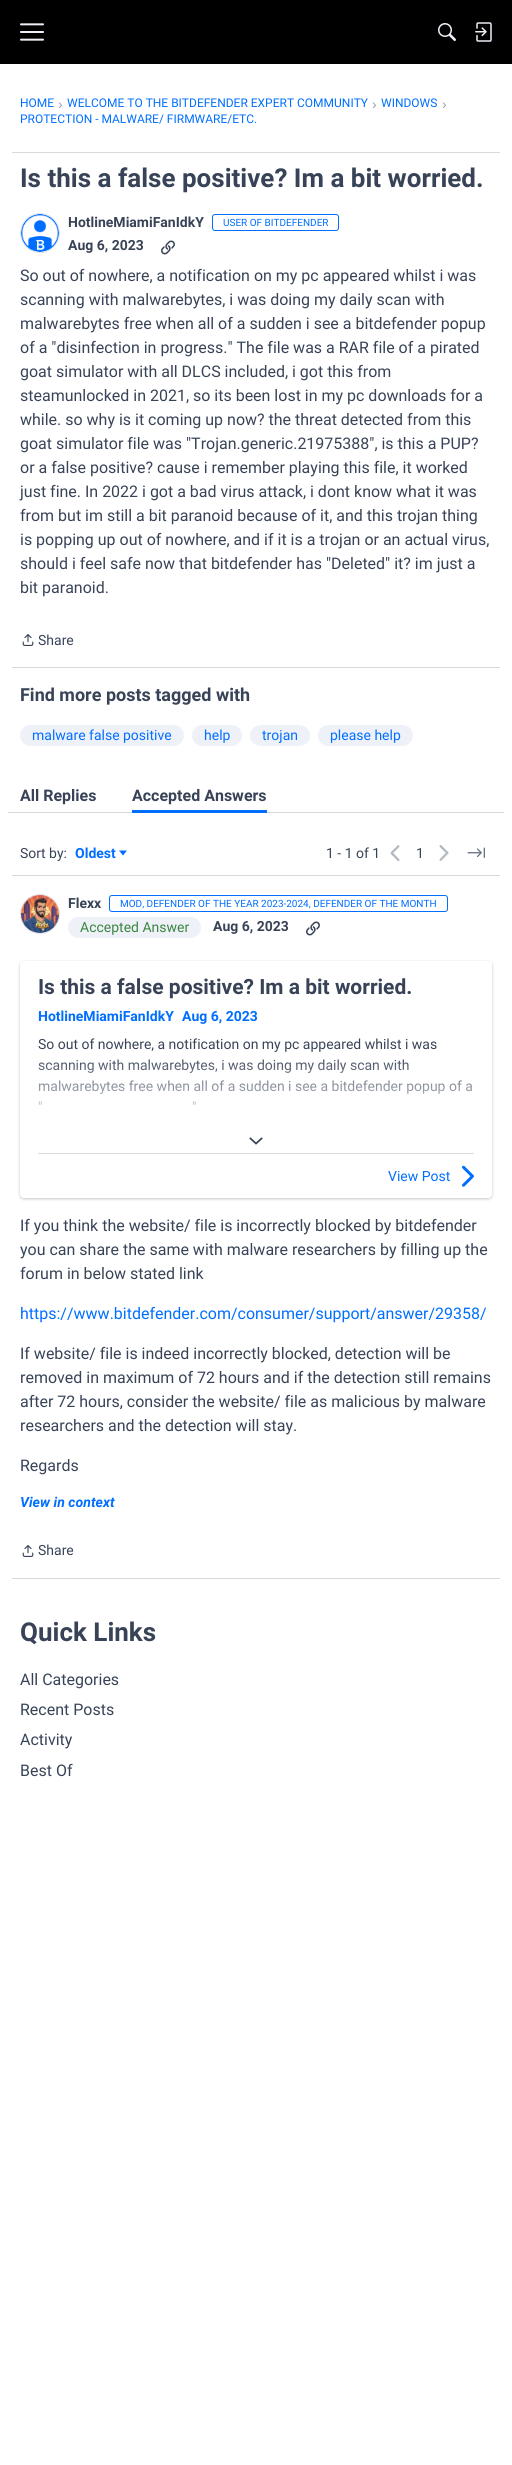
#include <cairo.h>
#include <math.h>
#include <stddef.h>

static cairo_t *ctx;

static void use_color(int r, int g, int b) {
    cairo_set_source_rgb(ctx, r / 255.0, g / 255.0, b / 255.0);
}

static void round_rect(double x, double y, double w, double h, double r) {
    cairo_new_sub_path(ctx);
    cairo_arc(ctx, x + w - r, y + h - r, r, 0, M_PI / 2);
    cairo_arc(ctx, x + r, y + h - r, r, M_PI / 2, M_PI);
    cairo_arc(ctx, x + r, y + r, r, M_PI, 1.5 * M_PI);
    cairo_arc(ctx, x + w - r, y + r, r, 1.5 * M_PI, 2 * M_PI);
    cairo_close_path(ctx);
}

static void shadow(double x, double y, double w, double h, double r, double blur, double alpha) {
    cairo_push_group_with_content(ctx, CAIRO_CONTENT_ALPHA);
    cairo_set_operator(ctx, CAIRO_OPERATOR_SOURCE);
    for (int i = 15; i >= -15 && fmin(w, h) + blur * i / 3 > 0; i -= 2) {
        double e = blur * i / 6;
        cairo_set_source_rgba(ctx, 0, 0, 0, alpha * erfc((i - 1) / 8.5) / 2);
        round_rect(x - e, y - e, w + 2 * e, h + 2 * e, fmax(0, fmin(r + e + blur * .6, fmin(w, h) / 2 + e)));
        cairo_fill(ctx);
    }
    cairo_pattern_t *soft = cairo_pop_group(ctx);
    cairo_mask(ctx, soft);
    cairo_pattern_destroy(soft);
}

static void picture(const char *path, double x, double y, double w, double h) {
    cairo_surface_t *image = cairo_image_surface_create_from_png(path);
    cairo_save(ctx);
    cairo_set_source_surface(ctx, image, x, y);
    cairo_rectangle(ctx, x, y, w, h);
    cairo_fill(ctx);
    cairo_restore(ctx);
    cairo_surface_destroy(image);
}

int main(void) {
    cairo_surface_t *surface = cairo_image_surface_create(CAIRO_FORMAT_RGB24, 512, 2465);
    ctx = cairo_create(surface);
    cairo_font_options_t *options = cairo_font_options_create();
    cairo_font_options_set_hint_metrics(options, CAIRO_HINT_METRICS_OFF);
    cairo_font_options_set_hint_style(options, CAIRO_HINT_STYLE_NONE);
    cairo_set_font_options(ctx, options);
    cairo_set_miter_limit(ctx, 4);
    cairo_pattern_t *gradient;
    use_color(255, 255, 255);
    cairo_paint(ctx);
    use_color(0, 0, 0);
    cairo_rectangle(ctx, 0, 0, 512, 64);
    cairo_fill(ctx);
    picture("img1.png", 20, 23, 24, 18);
    picture("img2.png", 438, 23, 18, 18);
    picture("img3.png", 475, 22, 17, 20);
    cairo_select_font_face(ctx, "Roboto", CAIRO_FONT_SLANT_NORMAL, CAIRO_FONT_WEIGHT_NORMAL);
    cairo_set_font_size(ctx, 12);
    use_color(0, 110, 255);
    cairo_move_to(ctx, 20, 107);
    cairo_show_text(ctx, "HOME");
    cairo_select_font_face(ctx, "Liberation Sans", CAIRO_FONT_SLANT_NORMAL, CAIRO_FONT_WEIGHT_NORMAL);
    cairo_set_font_size(ctx, 14);
    use_color(156, 161, 171);
    cairo_move_to(ctx, 58, 109);
    cairo_show_text(ctx, "›");
    cairo_select_font_face(ctx, "Roboto", CAIRO_FONT_SLANT_NORMAL, CAIRO_FONT_WEIGHT_NORMAL);
    cairo_set_font_size(ctx, 12);
    use_color(0, 110, 255);
    cairo_move_to(ctx, 67, 107);
    cairo_show_text(ctx, "WELCOME TO THE BITDEFENDER EXPERT COMMUNITY");
    cairo_select_font_face(ctx, "Liberation Sans", CAIRO_FONT_SLANT_NORMAL, CAIRO_FONT_WEIGHT_NORMAL);
    cairo_set_font_size(ctx, 14);
    use_color(156, 161, 171);
    cairo_move_to(ctx, 372, 109);
    cairo_show_text(ctx, "›");
    cairo_select_font_face(ctx, "Roboto", CAIRO_FONT_SLANT_NORMAL, CAIRO_FONT_WEIGHT_NORMAL);
    cairo_set_font_size(ctx, 12);
    use_color(0, 110, 255);
    cairo_move_to(ctx, 381, 107);
    cairo_show_text(ctx, "WINDOWS");
    cairo_select_font_face(ctx, "Liberation Sans", CAIRO_FONT_SLANT_NORMAL, CAIRO_FONT_WEIGHT_NORMAL);
    cairo_set_font_size(ctx, 14);
    use_color(156, 161, 171);
    cairo_move_to(ctx, 442, 109);
    cairo_show_text(ctx, "›");
    cairo_select_font_face(ctx, "Roboto", CAIRO_FONT_SLANT_NORMAL, CAIRO_FONT_WEIGHT_NORMAL);
    cairo_set_font_size(ctx, 12);
    use_color(0, 110, 255);
    cairo_move_to(ctx, 20, 123);
    cairo_show_text(ctx, "PROTECTION - MALWARE/ FIRMWARE/ETC.");
    use_color(215, 217, 221);
    cairo_rectangle(ctx, 12, 152, 488, 1);
    cairo_fill(ctx);
    cairo_select_font_face(ctx, "Roboto", CAIRO_FONT_SLANT_NORMAL, CAIRO_FONT_WEIGHT_BOLD);
    cairo_set_font_size(ctx, 26);
    use_color(56, 67, 87);
    cairo_move_to(ctx, 20, 187);
    cairo_show_text(ctx, "Is this a false positive? Im a bit worried.");
    cairo_new_path(ctx);
    cairo_arc(ctx, 40, 233, 19.5, 0, 2 * M_PI);
    use_color(225, 227, 230);
    cairo_set_line_width(ctx, 1);
    cairo_stroke(ctx);
    picture("img4.png", 21, 214, 38, 38);
    cairo_set_font_size(ctx, 14);
    use_color(56, 67, 87);
    cairo_move_to(ctx, 68, 227);
    cairo_show_text(ctx, "HotlineMiamiFanIdkY");
    round_rect(212.5, 214.5, 126, 16, 2.5);
    use_color(0, 110, 255);
    cairo_stroke(ctx);
    cairo_select_font_face(ctx, "Roboto", CAIRO_FONT_SLANT_NORMAL, CAIRO_FONT_WEIGHT_NORMAL);
    cairo_set_font_size(ctx, 10);
    cairo_move_to(ctx, 223, 226);
    cairo_show_text(ctx, "USER OF BITDEFENDER");
    cairo_select_font_face(ctx, "Roboto", CAIRO_FONT_SLANT_NORMAL, CAIRO_FONT_WEIGHT_BOLD);
    cairo_set_font_size(ctx, 14);
    use_color(56, 67, 87);
    cairo_move_to(ctx, 68, 250);
    cairo_show_text(ctx, "Aug 6, 2023");
    picture("img5.png", 161, 240, 14, 15);
    cairo_select_font_face(ctx, "Roboto", CAIRO_FONT_SLANT_NORMAL, CAIRO_FONT_WEIGHT_NORMAL);
    cairo_set_font_size(ctx, 16);
    cairo_move_to(ctx, 20, 281);
    cairo_show_text(ctx, "So out of nowhere, a notification on my pc appeared whilst i was");
    cairo_move_to(ctx, 20, 305);
    cairo_show_text(ctx, "scanning with malwarebytes, i was doing my daily scan with");
    cairo_move_to(ctx, 20, 329);
    cairo_show_text(ctx, "malwarebytes free when all of a sudden i see a bitdefender popup");
    cairo_move_to(ctx, 20, 353);
    cairo_show_text(ctx, "of a \"disinfection in progress.\" The file was a RAR file of a pirated");
    cairo_move_to(ctx, 20, 377);
    cairo_show_text(ctx, "goat simulator with all DLCS included, i got this from");
    cairo_move_to(ctx, 20, 401);
    cairo_show_text(ctx, "steamunlocked in 2021, so its been lost in my pc downloads for a");
    cairo_move_to(ctx, 20, 425);
    cairo_show_text(ctx, "while. so why is it coming up now? the threat detected from this");
    cairo_move_to(ctx, 20, 449);
    cairo_show_text(ctx, "goat simulator file was \"Trojan.generic.21975388\", is this a PUP?");
    cairo_move_to(ctx, 20, 473);
    cairo_show_text(ctx, "or a false positive? cause i remember playing this file, it worked");
    cairo_move_to(ctx, 20, 497);
    cairo_show_text(ctx, "just fine. In 2022 i got a bad virus attack, i dont know what it was");
    cairo_move_to(ctx, 20, 521);
    cairo_show_text(ctx, "from but im still a bit paranoid because of it, and this trojan thing");
    cairo_move_to(ctx, 20, 545);
    cairo_show_text(ctx, "is popping up out of nowhere, and if it is a trojan or an actual virus,");
    cairo_move_to(ctx, 20, 569);
    cairo_show_text(ctx, "should i feel safe now that bitdefender has \"Deleted\" it? im just a");
    cairo_move_to(ctx, 20, 593);
    cairo_show_text(ctx, "bit paranoid.");
    picture("img6.png", 22, 634, 12, 12);
    cairo_set_font_size(ctx, 14);
    cairo_move_to(ctx, 38, 645);
    cairo_show_text(ctx, "Share");
    use_color(215, 217, 221);
    cairo_rectangle(ctx, 12, 667, 488, 1);
    cairo_fill(ctx);
    cairo_select_font_face(ctx, "Roboto", CAIRO_FONT_SLANT_NORMAL, CAIRO_FONT_WEIGHT_BOLD);
    cairo_set_font_size(ctx, 18);
    use_color(56, 67, 87);
    cairo_move_to(ctx, 20, 701);
    cairo_show_text(ctx, "Find more posts tagged with");
    use_color(239, 241, 249);
    round_rect(20, 725, 164, 21, 10.5);
    cairo_fill(ctx);
    cairo_select_font_face(ctx, "Roboto", CAIRO_FONT_SLANT_NORMAL, CAIRO_FONT_WEIGHT_NORMAL);
    cairo_set_font_size(ctx, 14);
    use_color(0, 110, 255);
    cairo_move_to(ctx, 32, 740);
    cairo_show_text(ctx, "malware false positive");
    use_color(239, 241, 249);
    round_rect(192, 725, 50, 21, 10.5);
    cairo_fill(ctx);
    use_color(0, 110, 255);
    cairo_move_to(ctx, 204, 740);
    cairo_show_text(ctx, "help");
    use_color(239, 241, 249);
    round_rect(250, 725, 60, 21, 10.5);
    cairo_fill(ctx);
    use_color(0, 110, 255);
    cairo_move_to(ctx, 262, 740);
    cairo_show_text(ctx, "trojan");
    use_color(239, 241, 249);
    round_rect(318, 725, 95, 21, 10.5);
    cairo_fill(ctx);
    use_color(0, 110, 255);
    cairo_move_to(ctx, 330, 740);
    cairo_show_text(ctx, "please help");
    use_color(215, 217, 221);
    cairo_rectangle(ctx, 8, 812, 496, 1);
    cairo_fill(ctx);
    cairo_select_font_face(ctx, "Roboto", CAIRO_FONT_SLANT_NORMAL, CAIRO_FONT_WEIGHT_BOLD);
    cairo_set_font_size(ctx, 16);
    use_color(56, 67, 87);
    cairo_move_to(ctx, 20, 801);
    cairo_show_text(ctx, "All Replies");
    cairo_move_to(ctx, 132, 801);
    cairo_show_text(ctx, "Accepted Answers");
    use_color(0, 110, 255);
    cairo_rectangle(ctx, 132, 810, 135, 3);
    cairo_fill(ctx);
    cairo_select_font_face(ctx, "Roboto", CAIRO_FONT_SLANT_NORMAL, CAIRO_FONT_WEIGHT_NORMAL);
    cairo_set_font_size(ctx, 14);
    use_color(56, 67, 87);
    cairo_move_to(ctx, 20, 858);
    cairo_show_text(ctx, "Sort by:");
    cairo_select_font_face(ctx, "Roboto", CAIRO_FONT_SLANT_NORMAL, CAIRO_FONT_WEIGHT_BOLD);
    use_color(0, 110, 255);
    cairo_move_to(ctx, 75, 858);
    cairo_show_text(ctx, "Oldest");
    cairo_new_path(ctx);
    cairo_move_to(ctx, 119, 850.5);
    cairo_line_to(ctx, 127, 850.5);
    cairo_line_to(ctx, 123, 855.5);
    cairo_close_path(ctx);
    cairo_fill(ctx);
    cairo_select_font_face(ctx, "Roboto", CAIRO_FONT_SLANT_NORMAL, CAIRO_FONT_WEIGHT_NORMAL);
    use_color(56, 67, 87);
    cairo_move_to(ctx, 326, 858);
    cairo_show_text(ctx, "1 - 1 of 1");
    picture("img7.png", 390, 845, 10, 16);
    cairo_move_to(ctx, 416, 858);
    cairo_show_text(ctx, "1");
    picture("img8.png", 439, 845, 10, 16);
    picture("img9.png", 467, 847, 18, 11);
    use_color(215, 217, 221);
    cairo_rectangle(ctx, 12, 875, 488, 1);
    cairo_fill(ctx);
    cairo_arc(ctx, 40, 914, 19.5, 0, 2 * M_PI);
    use_color(225, 227, 230);
    cairo_stroke(ctx);
    picture("img10.png", 21, 895, 38, 38);
    cairo_select_font_face(ctx, "Roboto", CAIRO_FONT_SLANT_NORMAL, CAIRO_FONT_WEIGHT_BOLD);
    use_color(56, 67, 87);
    cairo_move_to(ctx, 68, 908);
    cairo_show_text(ctx, "Flexx");
    round_rect(109.5, 895.5, 338, 16, 2.5);
    use_color(0, 110, 255);
    cairo_stroke(ctx);
    cairo_select_font_face(ctx, "Roboto", CAIRO_FONT_SLANT_NORMAL, CAIRO_FONT_WEIGHT_NORMAL);
    cairo_set_font_size(ctx, 10);
    cairo_move_to(ctx, 120, 907);
    cairo_show_text(ctx, "MOD, DEFENDER OF THE YEAR 2023-2024, DEFENDER OF THE MONTH");
    use_color(239, 241, 249);
    round_rect(68, 917, 133, 21, 10.5);
    cairo_fill(ctx);
    cairo_set_font_size(ctx, 14);
    use_color(56, 133, 61);
    cairo_move_to(ctx, 80, 932);
    cairo_show_text(ctx, "Accepted Answer");
    cairo_select_font_face(ctx, "Roboto", CAIRO_FONT_SLANT_NORMAL, CAIRO_FONT_WEIGHT_BOLD);
    use_color(56, 67, 87);
    cairo_move_to(ctx, 213, 931);
    cairo_show_text(ctx, "Aug 6, 2023");
    picture("img5.png", 306, 921, 14, 15);
    use_color(0, 0, 0);
    shadow(20, 962, 472, 237, 4, 1.5, 0.22);
    use_color(255, 255, 255);
    round_rect(20, 961, 472, 237, 4);
    cairo_fill(ctx);
    cairo_set_font_size(ctx, 21);
    use_color(56, 67, 87);
    cairo_move_to(ctx, 38, 994);
    cairo_show_text(ctx, "Is this a false positive? Im a bit worried.");
    cairo_set_font_size(ctx, 14);
    use_color(0, 110, 255);
    cairo_move_to(ctx, 38, 1021);
    cairo_show_text(ctx, "HotlineMiamiFanIdkY");
    cairo_move_to(ctx, 182, 1021);
    cairo_show_text(ctx, "Aug 6, 2023");
    cairo_select_font_face(ctx, "Roboto", CAIRO_FONT_SLANT_NORMAL, CAIRO_FONT_WEIGHT_NORMAL);
    use_color(56, 67, 87);
    cairo_move_to(ctx, 38, 1049);
    cairo_show_text(ctx, "So out of nowhere, a notification on my pc appeared whilst i was");
    cairo_move_to(ctx, 38, 1070);
    cairo_show_text(ctx, "scanning with malwarebytes, i was doing my daily scan with");
    cairo_move_to(ctx, 38, 1091);
    cairo_show_text(ctx, "malwarebytes free when all of a sudden i see a bitdefender popup of a");
    cairo_move_to(ctx, 38, 1112);
    cairo_show_text(ctx, "\"");
    cairo_move_to(ctx, 192, 1112);
    cairo_show_text(ctx, "\"");
    gradient = cairo_pattern_create_linear(256, 1054, 256, 1129);
    cairo_pattern_add_color_stop_rgba(gradient, 0, 1, 1, 1, 0);
    cairo_pattern_add_color_stop_rgba(gradient, 1, 1, 1, 1, 1);
    cairo_set_source(ctx, gradient);
    cairo_pattern_destroy(gradient);
    cairo_rectangle(ctx, 38, 1059, 434, 46);
    cairo_fill(ctx);
    picture("img11.png", 249, 1137, 14, 8);
    use_color(215, 217, 221);
    cairo_rectangle(ctx, 38, 1153, 436, 1);
    cairo_fill(ctx);
    use_color(0, 110, 255);
    cairo_move_to(ctx, 388, 1181);
    cairo_show_text(ctx, "View Post");
    picture("img12.png", 462, 1165, 12, 22);
    cairo_set_font_size(ctx, 16);
    use_color(56, 67, 87);
    cairo_move_to(ctx, 20, 1231);
    cairo_show_text(ctx, "If you think the website/ file is incorrectly blocked by bitdefender");
    cairo_move_to(ctx, 20, 1255);
    cairo_show_text(ctx, "you can share the same with malware researchers by filling up the");
    cairo_move_to(ctx, 20, 1279);
    cairo_show_text(ctx, "forum in below stated link");
    use_color(0, 110, 255);
    cairo_move_to(ctx, 20, 1319);
    cairo_show_text(ctx, "https://www.bitdefender.com/consumer/support/answer/29358/");
    use_color(56, 67, 87);
    cairo_move_to(ctx, 20, 1359);
    cairo_show_text(ctx, "If website/ file is indeed incorrectly blocked, detection will be");
    cairo_move_to(ctx, 20, 1383);
    cairo_show_text(ctx, "removed in maximum of 72 hours and if the detection still remains");
    cairo_move_to(ctx, 20, 1407);
    cairo_show_text(ctx, "after 72 hours, consider the website/ file as malicious by malware");
    cairo_move_to(ctx, 20, 1431);
    cairo_show_text(ctx, "researchers and the detection will stay.");
    cairo_move_to(ctx, 20, 1471);
    cairo_show_text(ctx, "Regards");
    cairo_select_font_face(ctx, "Roboto", CAIRO_FONT_SLANT_ITALIC, CAIRO_FONT_WEIGHT_BOLD);
    cairo_set_font_size(ctx, 14);
    use_color(0, 110, 255);
    cairo_move_to(ctx, 20, 1507);
    cairo_show_text(ctx, "View in context");
    picture("img6.png", 22, 1545, 12, 12);
    cairo_select_font_face(ctx, "Roboto", CAIRO_FONT_SLANT_NORMAL, CAIRO_FONT_WEIGHT_NORMAL);
    use_color(56, 67, 87);
    cairo_move_to(ctx, 38, 1555);
    cairo_show_text(ctx, "Share");
    use_color(215, 217, 221);
    cairo_rectangle(ctx, 12, 1578, 488, 1);
    cairo_fill(ctx);
    cairo_select_font_face(ctx, "Roboto", CAIRO_FONT_SLANT_NORMAL, CAIRO_FONT_WEIGHT_BOLD);
    cairo_set_font_size(ctx, 26);
    use_color(56, 67, 87);
    cairo_move_to(ctx, 20, 1641);
    cairo_show_text(ctx, "Quick Links");
    cairo_select_font_face(ctx, "Roboto", CAIRO_FONT_SLANT_NORMAL, CAIRO_FONT_WEIGHT_NORMAL);
    cairo_set_font_size(ctx, 16);
    cairo_move_to(ctx, 20, 1685);
    cairo_show_text(ctx, "All Categories");
    cairo_move_to(ctx, 20, 1715);
    cairo_show_text(ctx, "Recent Posts");
    cairo_move_to(ctx, 20, 1745);
    cairo_show_text(ctx, "Activity");
    cairo_move_to(ctx, 20, 1776);
    cairo_show_text(ctx, "Best Of");
    cairo_surface_write_to_png(surface, "result.png");
    cairo_font_options_destroy(options);
    cairo_destroy(ctx);
    cairo_surface_destroy(surface);
    return 0;
}
